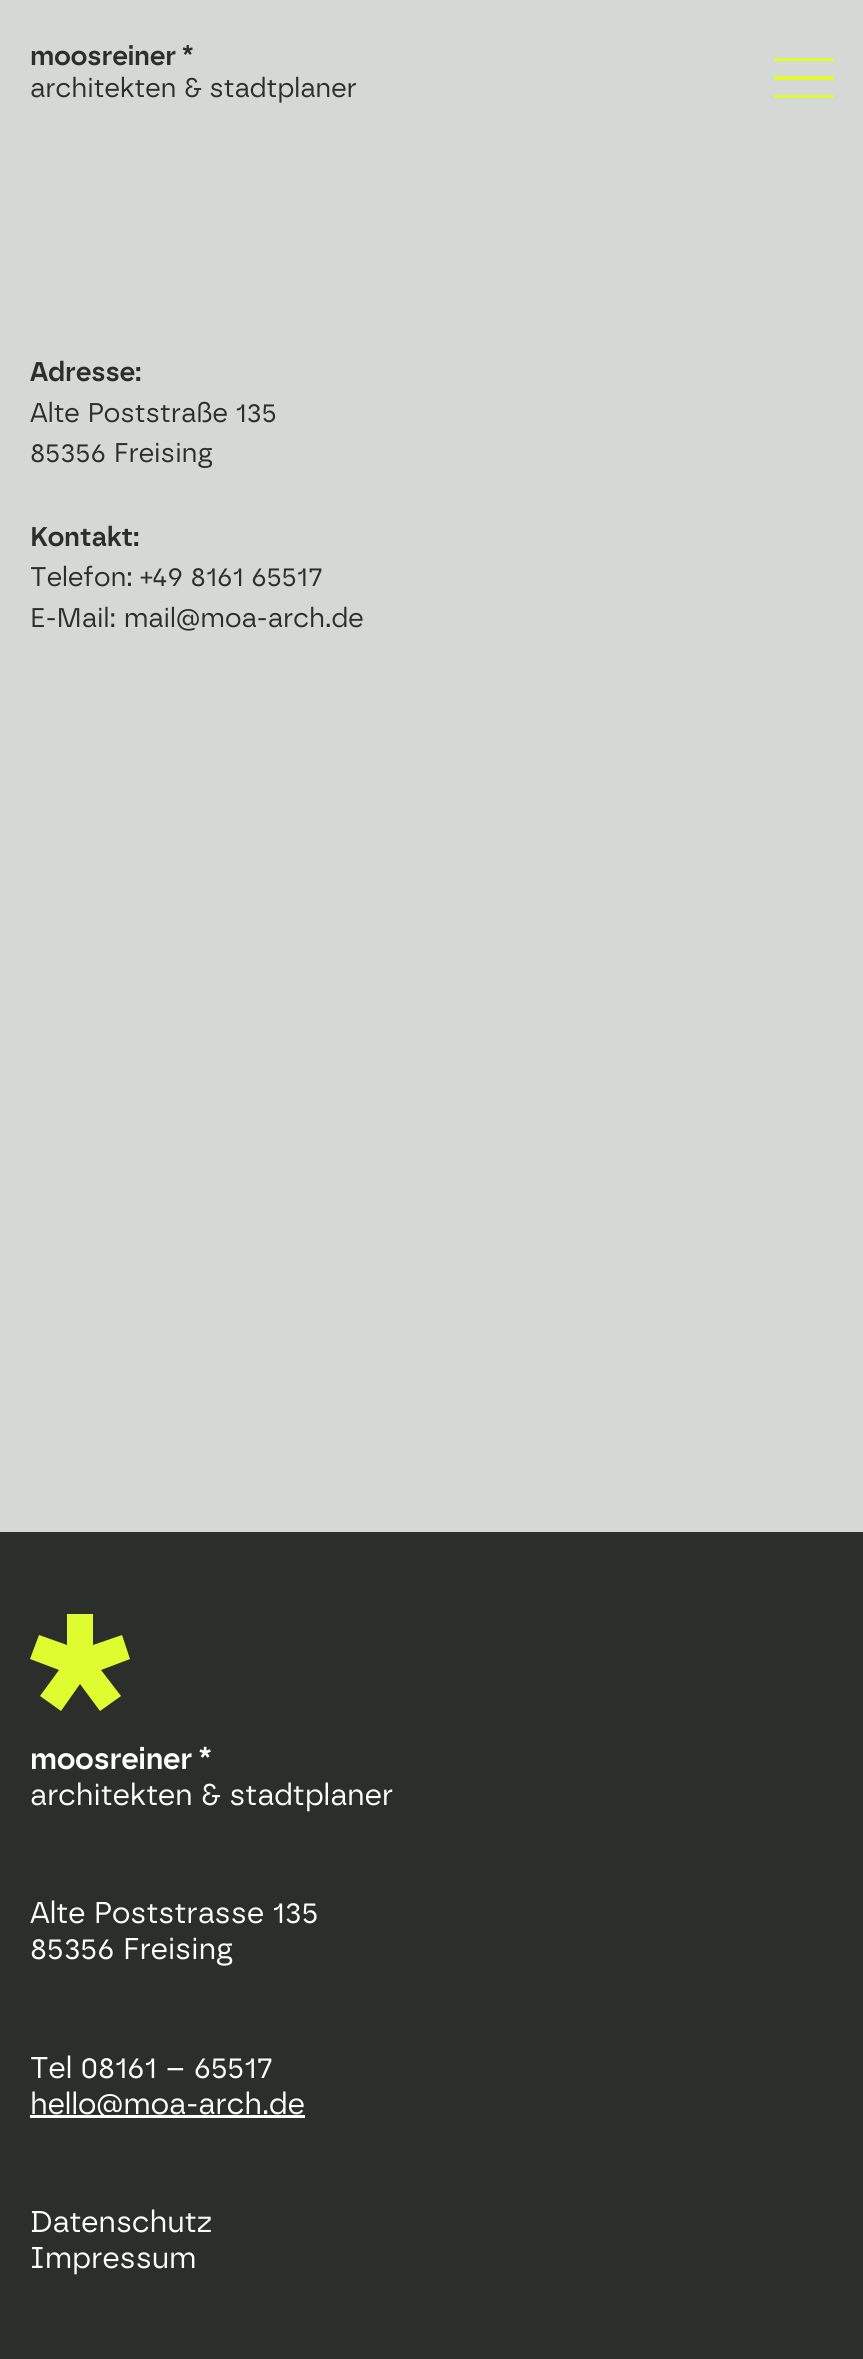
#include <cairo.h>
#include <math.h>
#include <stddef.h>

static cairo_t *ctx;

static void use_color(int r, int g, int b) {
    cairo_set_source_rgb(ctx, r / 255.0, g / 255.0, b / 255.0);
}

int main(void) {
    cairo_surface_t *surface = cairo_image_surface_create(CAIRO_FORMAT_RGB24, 863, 2359);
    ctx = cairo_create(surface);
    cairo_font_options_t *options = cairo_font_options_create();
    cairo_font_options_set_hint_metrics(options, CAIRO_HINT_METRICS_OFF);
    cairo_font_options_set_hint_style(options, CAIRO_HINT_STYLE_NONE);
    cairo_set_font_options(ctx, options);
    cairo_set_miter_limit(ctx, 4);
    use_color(213, 217, 213);
    cairo_paint(ctx);
    cairo_select_font_face(ctx, "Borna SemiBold", CAIRO_FONT_SLANT_NORMAL, CAIRO_FONT_WEIGHT_NORMAL);
    cairo_set_font_size(ctx, 27);
    use_color(44, 46, 44);
    cairo_move_to(ctx, 30, 65);
    cairo_show_text(ctx, "moosreiner *");
    cairo_select_font_face(ctx, "Borna", CAIRO_FONT_SLANT_NORMAL, CAIRO_FONT_WEIGHT_NORMAL);
    cairo_move_to(ctx, 30, 97);
    cairo_show_text(ctx, "architekten & stadtplaner");
    use_color(223, 252, 48);
    cairo_rectangle(ctx, 774, 58, 60, 3);
    cairo_fill(ctx);
    cairo_rectangle(ctx, 774, 76, 60, 4);
    cairo_fill(ctx);
    cairo_rectangle(ctx, 774, 95, 60, 3);
    cairo_fill(ctx);
    cairo_select_font_face(ctx, "Borna SemiBold", CAIRO_FONT_SLANT_NORMAL, CAIRO_FONT_WEIGHT_NORMAL);
    use_color(44, 46, 44);
    cairo_move_to(ctx, 30, 381);
    cairo_show_text(ctx, "Adresse:");
    cairo_select_font_face(ctx, "Borna", CAIRO_FONT_SLANT_NORMAL, CAIRO_FONT_WEIGHT_NORMAL);
    cairo_move_to(ctx, 30, 422);
    cairo_show_text(ctx, "Alte Poststraße 135");
    cairo_move_to(ctx, 30, 462);
    cairo_show_text(ctx, "85356 Freising");
    cairo_select_font_face(ctx, "Borna SemiBold", CAIRO_FONT_SLANT_NORMAL, CAIRO_FONT_WEIGHT_NORMAL);
    cairo_move_to(ctx, 30, 546);
    cairo_show_text(ctx, "Kontakt:");
    cairo_select_font_face(ctx, "Borna", CAIRO_FONT_SLANT_NORMAL, CAIRO_FONT_WEIGHT_NORMAL);
    cairo_move_to(ctx, 30, 586);
    cairo_show_text(ctx, "Telefon: +49 8161 65517");
    cairo_move_to(ctx, 30, 627);
    cairo_show_text(ctx, "E-Mail: mail@moa-arch.de");
    cairo_rectangle(ctx, 0, 1532, 863, 827);
    cairo_fill(ctx);
    use_color(223, 252, 48);
    cairo_new_path(ctx);
    cairo_move_to(ctx, 61, 1711);
    cairo_line_to(ctx, 80, 1684);
    cairo_line_to(ctx, 100, 1711);
    cairo_line_to(ctx, 121, 1696);
    cairo_line_to(ctx, 101, 1670);
    cairo_line_to(ctx, 130, 1659);
    cairo_line_to(ctx, 122, 1635);
    cairo_line_to(ctx, 93, 1645);
    cairo_line_to(ctx, 93, 1614);
    cairo_line_to(ctx, 67, 1614);
    cairo_line_to(ctx, 67, 1645);
    cairo_line_to(ctx, 39, 1635);
    cairo_line_to(ctx, 30, 1659);
    cairo_line_to(ctx, 59, 1670);
    cairo_line_to(ctx, 40, 1696);
    cairo_close_path(ctx);
    cairo_fill(ctx);
    cairo_select_font_face(ctx, "Borna SemiBold", CAIRO_FONT_SLANT_NORMAL, CAIRO_FONT_WEIGHT_NORMAL);
    cairo_set_font_size(ctx, 30);
    use_color(255, 255, 255);
    cairo_move_to(ctx, 30, 1769);
    cairo_show_text(ctx, "moosreiner *");
    cairo_select_font_face(ctx, "Borna", CAIRO_FONT_SLANT_NORMAL, CAIRO_FONT_WEIGHT_NORMAL);
    cairo_move_to(ctx, 30, 1805);
    cairo_show_text(ctx, "architekten & stadtplaner");
    cairo_move_to(ctx, 30, 1923);
    cairo_show_text(ctx, "Alte Poststrasse 135");
    cairo_move_to(ctx, 30, 1959);
    cairo_show_text(ctx, "85356 Freising");
    cairo_move_to(ctx, 30, 2078);
    cairo_show_text(ctx, "Tel 08161 – 65517");
    cairo_rectangle(ctx, 30, 2115, 275, 3);
    cairo_fill(ctx);
    cairo_move_to(ctx, 30, 2114);
    cairo_show_text(ctx, "hello@moa-arch.de");
    cairo_move_to(ctx, 30, 2232);
    cairo_show_text(ctx, "Datenschutz");
    cairo_move_to(ctx, 30, 2268);
    cairo_show_text(ctx, "Impressum");
    cairo_surface_write_to_png(surface, "result.png");
    cairo_font_options_destroy(options);
    cairo_destroy(ctx);
    cairo_surface_destroy(surface);
    return 0;
}
